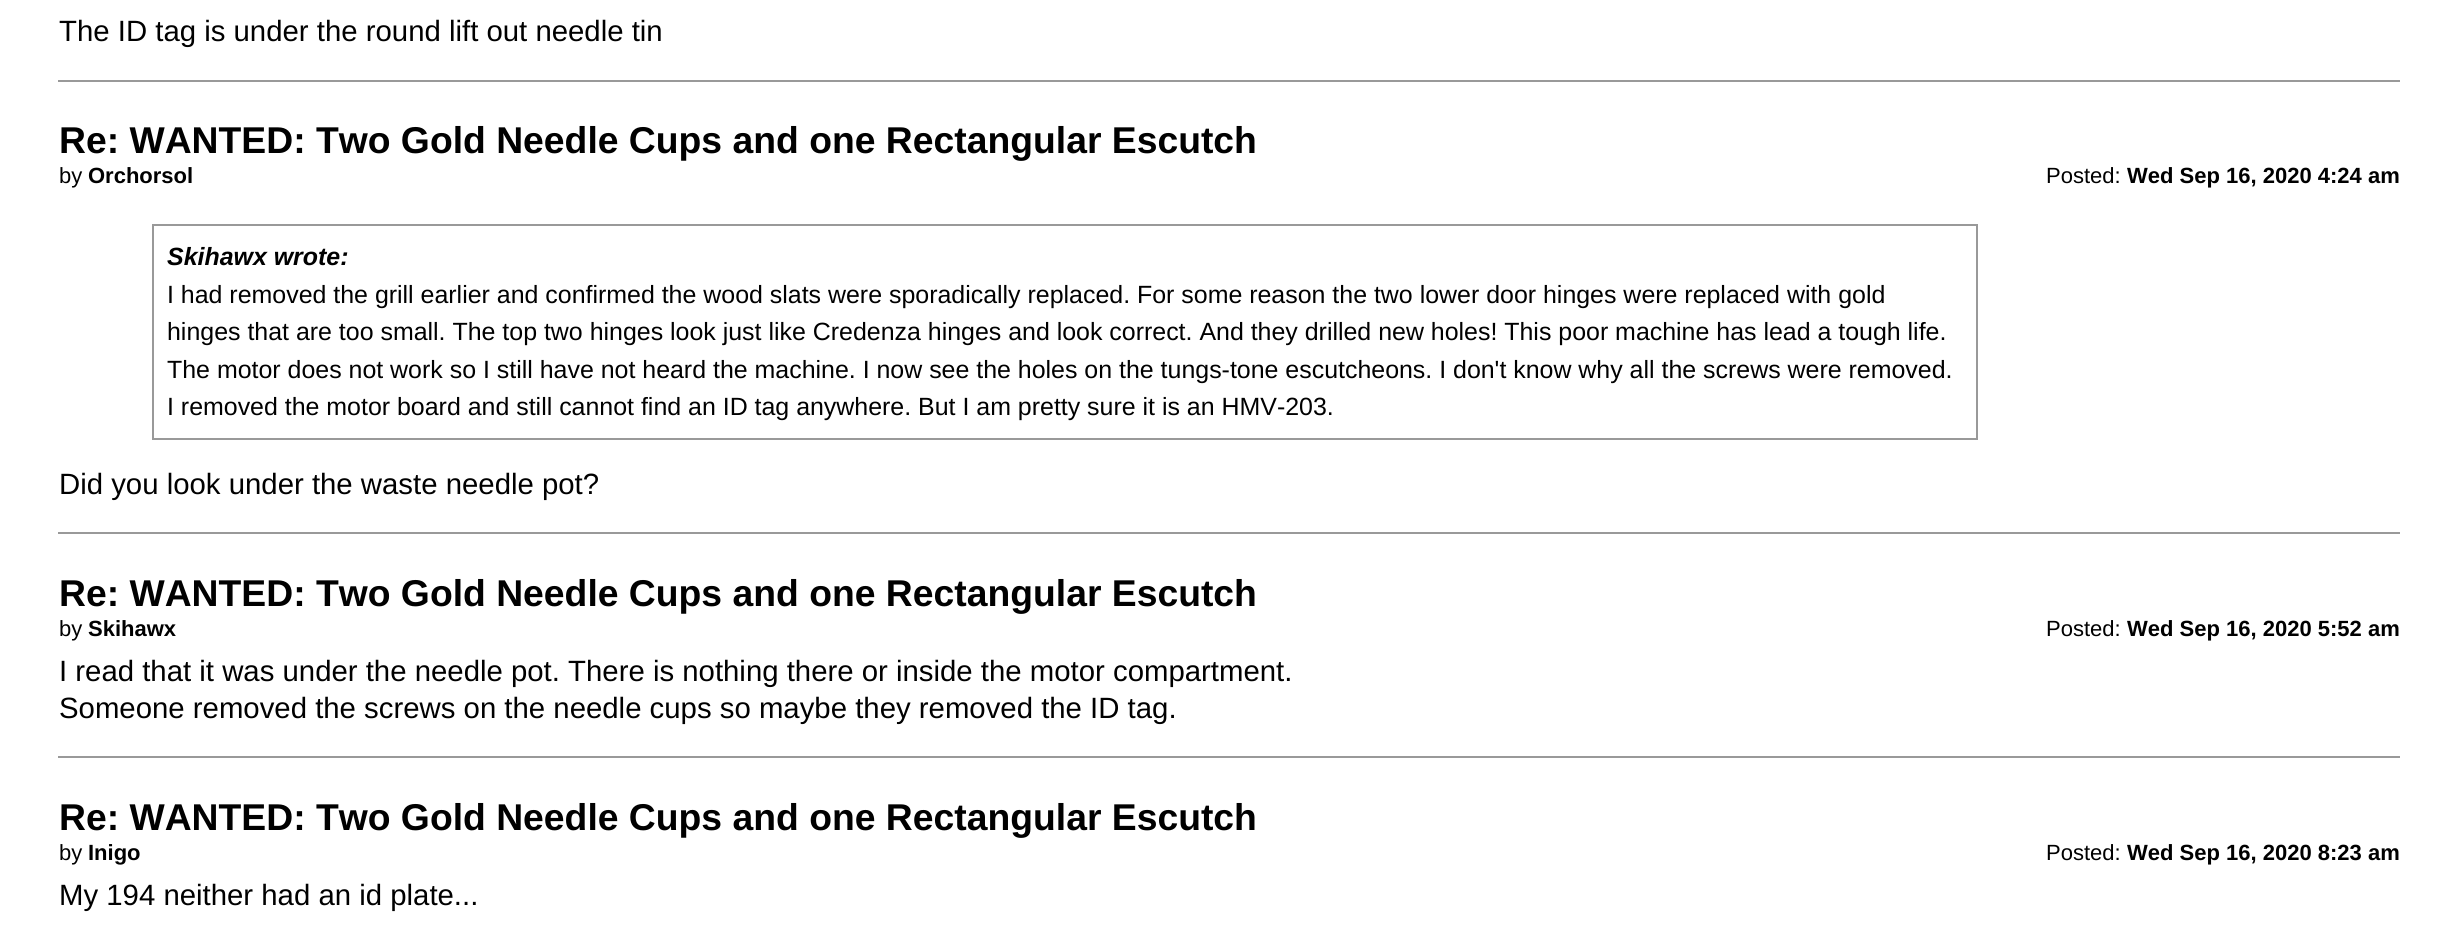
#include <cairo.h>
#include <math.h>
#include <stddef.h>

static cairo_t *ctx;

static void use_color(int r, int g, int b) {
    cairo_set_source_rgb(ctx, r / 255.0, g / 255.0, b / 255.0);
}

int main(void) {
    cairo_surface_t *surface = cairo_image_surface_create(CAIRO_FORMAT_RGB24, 2457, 936);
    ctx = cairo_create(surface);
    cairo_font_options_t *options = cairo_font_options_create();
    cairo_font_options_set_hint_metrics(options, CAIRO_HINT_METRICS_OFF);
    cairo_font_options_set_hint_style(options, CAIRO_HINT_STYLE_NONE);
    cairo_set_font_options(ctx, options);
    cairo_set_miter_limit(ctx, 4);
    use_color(255, 255, 255);
    cairo_paint(ctx);
    cairo_select_font_face(ctx, "Liberation Sans", CAIRO_FONT_SLANT_NORMAL, CAIRO_FONT_WEIGHT_NORMAL);
    cairo_set_font_size(ctx, 29.35);
    use_color(0, 0, 0);
    cairo_move_to(ctx, 59, 41);
    cairo_show_text(ctx, "The ID tag is under the round lift out needle tin");
    use_color(153, 153, 153);
    cairo_rectangle(ctx, 58, 80, 2342, 2);
    cairo_fill(ctx);
    cairo_select_font_face(ctx, "Liberation Sans", CAIRO_FONT_SLANT_NORMAL, CAIRO_FONT_WEIGHT_BOLD);
    cairo_set_font_size(ctx, 37.3);
    use_color(0, 0, 0);
    cairo_move_to(ctx, 59, 153);
    cairo_show_text(ctx, "Re: WANTED: Two Gold Needle Cups and one Rectangular Escutch");
    cairo_select_font_face(ctx, "Liberation Sans", CAIRO_FONT_SLANT_NORMAL, CAIRO_FONT_WEIGHT_NORMAL);
    cairo_set_font_size(ctx, 22);
    cairo_move_to(ctx, 59, 183);
    cairo_show_text(ctx, "by");
    cairo_select_font_face(ctx, "Liberation Sans", CAIRO_FONT_SLANT_NORMAL, CAIRO_FONT_WEIGHT_BOLD);
    cairo_move_to(ctx, 88, 183);
    cairo_show_text(ctx, "Orchorsol");
    cairo_select_font_face(ctx, "Liberation Sans", CAIRO_FONT_SLANT_NORMAL, CAIRO_FONT_WEIGHT_NORMAL);
    cairo_move_to(ctx, 2046, 183);
    cairo_show_text(ctx, "Posted:");
    cairo_select_font_face(ctx, "Liberation Sans", CAIRO_FONT_SLANT_NORMAL, CAIRO_FONT_WEIGHT_BOLD);
    cairo_move_to(ctx, 2127, 183);
    cairo_show_text(ctx, "Wed Sep 16, 2020 4:24 am");
    cairo_rectangle(ctx, 153, 225, 1824, 214);
    use_color(153, 153, 153);
    cairo_stroke(ctx);
    cairo_select_font_face(ctx, "Liberation Sans", CAIRO_FONT_SLANT_ITALIC, CAIRO_FONT_WEIGHT_BOLD);
    cairo_set_font_size(ctx, 24.93);
    use_color(0, 0, 0);
    cairo_move_to(ctx, 167, 265);
    cairo_show_text(ctx, "Skihawx wrote:");
    cairo_select_font_face(ctx, "Liberation Sans", CAIRO_FONT_SLANT_NORMAL, CAIRO_FONT_WEIGHT_NORMAL);
    cairo_move_to(ctx, 167, 303);
    cairo_show_text(ctx, "I had removed the grill earlier and confirmed the wood slats were sporadically replaced. For some reason the two lower door hinges were replaced with gold");
    cairo_move_to(ctx, 167, 340);
    cairo_show_text(ctx, "hinges that are too small. The top two hinges look just like Credenza hinges and look correct. And they drilled new holes! This poor machine has lead a tough life.");
    cairo_move_to(ctx, 167, 378);
    cairo_show_text(ctx, "The motor does not work so I still have not heard the machine. I now see the holes on the tungs-tone escutcheons. I don't know why all the screws were removed.");
    cairo_move_to(ctx, 167, 415);
    cairo_show_text(ctx, "I removed the motor board and still cannot find an ID tag anywhere. But I am pretty sure it is an HMV-203.");
    cairo_set_font_size(ctx, 29.35);
    cairo_move_to(ctx, 59, 494);
    cairo_show_text(ctx, "Did you look under the waste needle pot?");
    use_color(153, 153, 153);
    cairo_rectangle(ctx, 58, 532, 2342, 2);
    cairo_fill(ctx);
    cairo_select_font_face(ctx, "Liberation Sans", CAIRO_FONT_SLANT_NORMAL, CAIRO_FONT_WEIGHT_BOLD);
    cairo_set_font_size(ctx, 37.3);
    use_color(0, 0, 0);
    cairo_move_to(ctx, 59, 606);
    cairo_show_text(ctx, "Re: WANTED: Two Gold Needle Cups and one Rectangular Escutch");
    cairo_select_font_face(ctx, "Liberation Sans", CAIRO_FONT_SLANT_NORMAL, CAIRO_FONT_WEIGHT_NORMAL);
    cairo_set_font_size(ctx, 22);
    cairo_move_to(ctx, 59, 636);
    cairo_show_text(ctx, "by");
    cairo_select_font_face(ctx, "Liberation Sans", CAIRO_FONT_SLANT_NORMAL, CAIRO_FONT_WEIGHT_BOLD);
    cairo_move_to(ctx, 88, 636);
    cairo_show_text(ctx, "Skihawx");
    cairo_select_font_face(ctx, "Liberation Sans", CAIRO_FONT_SLANT_NORMAL, CAIRO_FONT_WEIGHT_NORMAL);
    cairo_move_to(ctx, 2046, 636);
    cairo_show_text(ctx, "Posted:");
    cairo_select_font_face(ctx, "Liberation Sans", CAIRO_FONT_SLANT_NORMAL, CAIRO_FONT_WEIGHT_BOLD);
    cairo_move_to(ctx, 2127, 636);
    cairo_show_text(ctx, "Wed Sep 16, 2020 5:52 am");
    cairo_select_font_face(ctx, "Liberation Sans", CAIRO_FONT_SLANT_NORMAL, CAIRO_FONT_WEIGHT_NORMAL);
    cairo_set_font_size(ctx, 29.35);
    cairo_move_to(ctx, 59, 681);
    cairo_show_text(ctx, "I read that it was under the needle pot. There is nothing there or inside the motor compartment.");
    cairo_move_to(ctx, 59, 718);
    cairo_show_text(ctx, "Someone removed the screws on the needle cups so maybe they removed the ID tag.");
    use_color(153, 153, 153);
    cairo_rectangle(ctx, 58, 756, 2342, 2);
    cairo_fill(ctx);
    cairo_select_font_face(ctx, "Liberation Sans", CAIRO_FONT_SLANT_NORMAL, CAIRO_FONT_WEIGHT_BOLD);
    cairo_set_font_size(ctx, 37.3);
    use_color(0, 0, 0);
    cairo_move_to(ctx, 59, 830);
    cairo_show_text(ctx, "Re: WANTED: Two Gold Needle Cups and one Rectangular Escutch");
    cairo_select_font_face(ctx, "Liberation Sans", CAIRO_FONT_SLANT_NORMAL, CAIRO_FONT_WEIGHT_NORMAL);
    cairo_set_font_size(ctx, 22);
    cairo_move_to(ctx, 59, 860);
    cairo_show_text(ctx, "by");
    cairo_select_font_face(ctx, "Liberation Sans", CAIRO_FONT_SLANT_NORMAL, CAIRO_FONT_WEIGHT_BOLD);
    cairo_move_to(ctx, 88, 860);
    cairo_show_text(ctx, "Inigo");
    cairo_select_font_face(ctx, "Liberation Sans", CAIRO_FONT_SLANT_NORMAL, CAIRO_FONT_WEIGHT_NORMAL);
    cairo_move_to(ctx, 2046, 860);
    cairo_show_text(ctx, "Posted:");
    cairo_select_font_face(ctx, "Liberation Sans", CAIRO_FONT_SLANT_NORMAL, CAIRO_FONT_WEIGHT_BOLD);
    cairo_move_to(ctx, 2127, 860);
    cairo_show_text(ctx, "Wed Sep 16, 2020 8:23 am");
    cairo_select_font_face(ctx, "Liberation Sans", CAIRO_FONT_SLANT_NORMAL, CAIRO_FONT_WEIGHT_NORMAL);
    cairo_set_font_size(ctx, 29.35);
    cairo_move_to(ctx, 59, 905);
    cairo_show_text(ctx, "My 194 neither had an id plate...");
    cairo_surface_write_to_png(surface, "result.png");
    cairo_font_options_destroy(options);
    cairo_destroy(ctx);
    cairo_surface_destroy(surface);
    return 0;
}
